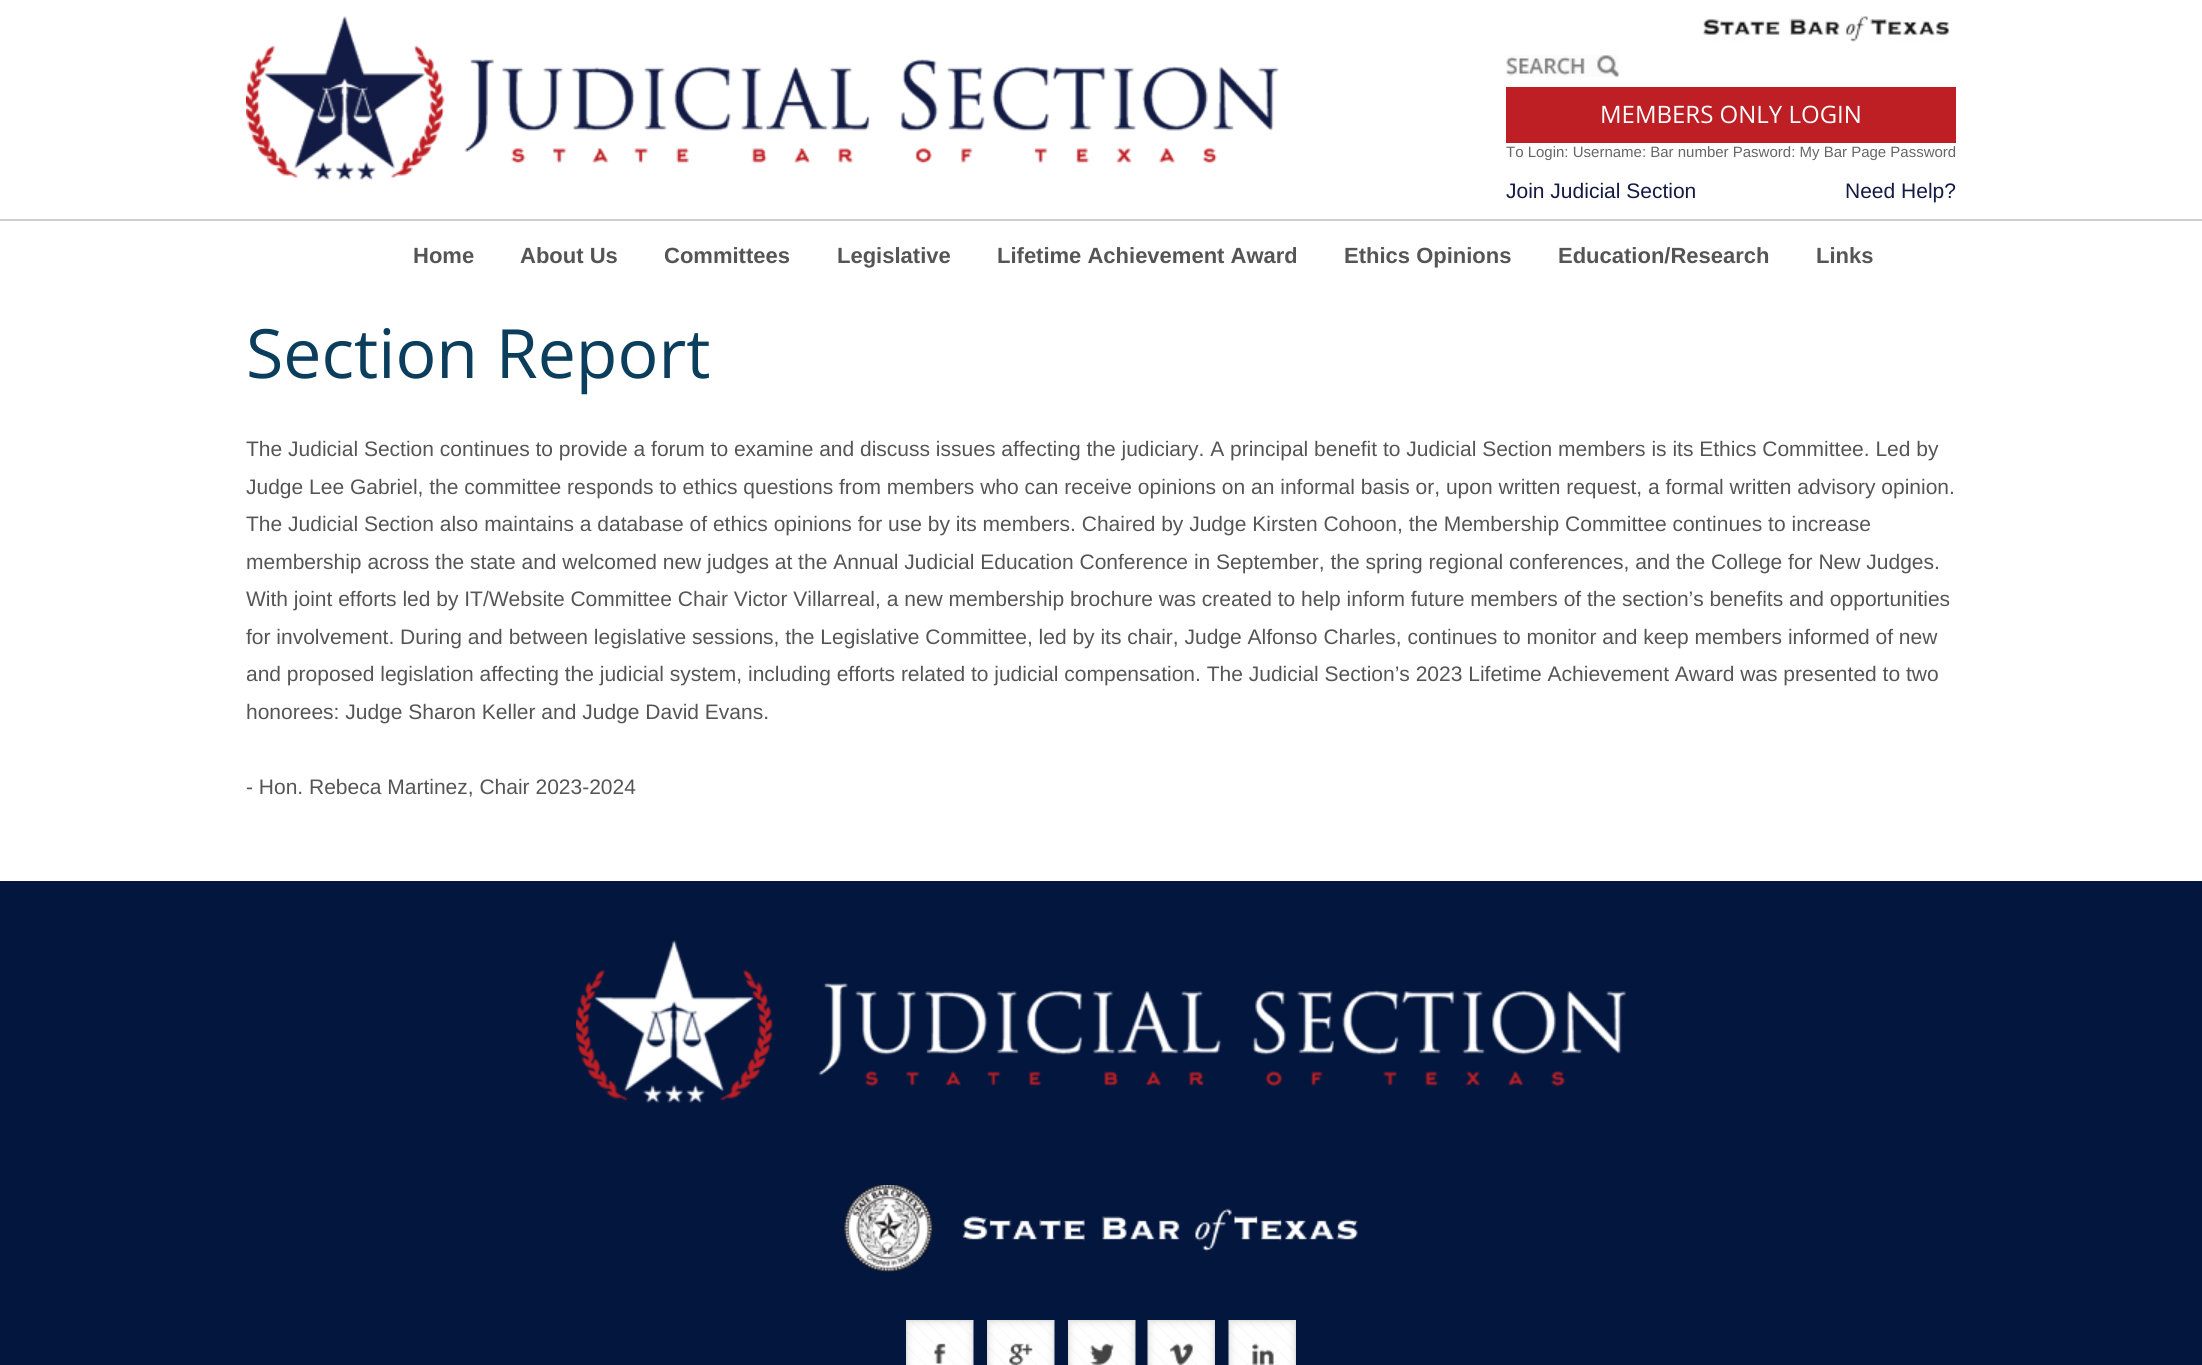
#include <cairo.h>
#include <math.h>
#include <stddef.h>

static cairo_t *ctx;

static void use_color(int r, int g, int b) {
    cairo_set_source_rgb(ctx, r / 255.0, g / 255.0, b / 255.0);
}

static void picture(const char *path, double x, double y, double w, double h) {
    cairo_surface_t *image = cairo_image_surface_create_from_png(path);
    cairo_save(ctx);
    cairo_set_source_surface(ctx, image, x, y);
    cairo_rectangle(ctx, x, y, w, h);
    cairo_fill(ctx);
    cairo_restore(ctx);
    cairo_surface_destroy(image);
}

int main(void) {
    cairo_surface_t *surface = cairo_image_surface_create(CAIRO_FORMAT_RGB24, 2202, 1365);
    ctx = cairo_create(surface);
    cairo_font_options_t *options = cairo_font_options_create();
    cairo_font_options_set_hint_metrics(options, CAIRO_HINT_METRICS_OFF);
    cairo_font_options_set_hint_style(options, CAIRO_HINT_STYLE_NONE);
    cairo_set_font_options(ctx, options);
    cairo_set_miter_limit(ctx, 4);
    use_color(255, 255, 255);
    cairo_paint(ctx);
    picture("img1.png", 246, 16, 199, 164);
    picture("img2.png", 464, 59, 815, 105);
    picture("img3.png", 1702, 16, 248, 26);
    picture("img4.png", 1506, 55, 113, 22);
    use_color(190, 31, 37);
    cairo_rectangle(ctx, 1506, 87, 450, 56);
    cairo_fill(ctx);
    cairo_select_font_face(ctx, "Open Sans", CAIRO_FONT_SLANT_NORMAL, CAIRO_FONT_WEIGHT_NORMAL);
    cairo_set_font_size(ctx, 24);
    use_color(255, 255, 255);
    cairo_move_to(ctx, 1600, 123);
    cairo_show_text(ctx, "MEMBERS ONLY LOGIN");
    cairo_select_font_face(ctx, "Liberation Sans", CAIRO_FONT_SLANT_NORMAL, CAIRO_FONT_WEIGHT_NORMAL);
    cairo_set_font_size(ctx, 15);
    use_color(102, 102, 102);
    cairo_move_to(ctx, 1506, 157);
    cairo_show_text(ctx, "To Login: Username: Bar number Pasword: My Bar Page Password");
    cairo_set_font_size(ctx, 21);
    use_color(19, 26, 68);
    cairo_move_to(ctx, 1506, 198);
    cairo_show_text(ctx, "Join Judicial Section");
    cairo_move_to(ctx, 1845, 198);
    cairo_show_text(ctx, "Need Help?");
    use_color(206, 206, 206);
    cairo_rectangle(ctx, 0, 219, 2202, 2);
    cairo_fill(ctx);
    cairo_select_font_face(ctx, "Liberation Sans", CAIRO_FONT_SLANT_NORMAL, CAIRO_FONT_WEIGHT_BOLD);
    cairo_set_font_size(ctx, 22);
    use_color(85, 85, 85);
    cairo_move_to(ctx, 413, 263);
    cairo_show_text(ctx, "Home");
    cairo_move_to(ctx, 520, 263);
    cairo_show_text(ctx, "About Us");
    cairo_move_to(ctx, 664, 263);
    cairo_show_text(ctx, "Committees");
    cairo_move_to(ctx, 837, 263);
    cairo_show_text(ctx, "Legislative");
    cairo_move_to(ctx, 997, 263);
    cairo_show_text(ctx, "Lifetime Achievement Award");
    cairo_move_to(ctx, 1344, 263);
    cairo_show_text(ctx, "Ethics Opinions");
    cairo_move_to(ctx, 1558, 263);
    cairo_show_text(ctx, "Education/Research");
    cairo_move_to(ctx, 1816, 263);
    cairo_show_text(ctx, "Links");
    cairo_select_font_face(ctx, "Open Sans", CAIRO_FONT_SLANT_NORMAL, CAIRO_FONT_WEIGHT_NORMAL);
    cairo_set_font_size(ctx, 68);
    use_color(11, 62, 93);
    cairo_move_to(ctx, 246, 378);
    cairo_show_text(ctx, "Section Report");
    cairo_select_font_face(ctx, "Liberation Sans", CAIRO_FONT_SLANT_NORMAL, CAIRO_FONT_WEIGHT_NORMAL);
    cairo_set_font_size(ctx, 21);
    use_color(85, 85, 85);
    cairo_move_to(ctx, 246, 456);
    cairo_show_text(ctx, "The Judicial Section continues to provide a forum to examine and discuss issues affecting the judiciary. A principal benefit to Judicial Section members is its Ethics Committee. Led by");
    cairo_move_to(ctx, 246, 494);
    cairo_show_text(ctx, "Judge Lee Gabriel, the committee responds to ethics questions from members who can receive opinions on an informal basis or, upon written request, a formal written advisory opinion.");
    cairo_move_to(ctx, 246, 531);
    cairo_show_text(ctx, "The Judicial Section also maintains a database of ethics opinions for use by its members. Chaired by Judge Kirsten Cohoon, the Membership Committee continues to increase");
    cairo_move_to(ctx, 246, 569);
    cairo_show_text(ctx, "membership across the state and welcomed new judges at the Annual Judicial Education Conference in September, the spring regional conferences, and the College for New Judges.");
    cairo_move_to(ctx, 246, 606);
    cairo_show_text(ctx, "With joint efforts led by IT/Website Committee Chair Victor Villarreal, a new membership brochure was created to help inform future members of the section’s benefits and opportunities");
    cairo_move_to(ctx, 246, 644);
    cairo_show_text(ctx, "for involvement. During and between legislative sessions, the Legislative Committee, led by its chair, Judge Alfonso Charles, continues to monitor and keep members informed of new");
    cairo_move_to(ctx, 246, 681);
    cairo_show_text(ctx, "and proposed legislation affecting the judicial system, including efforts related to judicial compensation. The Judicial Section’s 2023 Lifetime Achievement Award was presented to two");
    cairo_move_to(ctx, 246, 719);
    cairo_show_text(ctx, "honorees: Judge Sharon Keller and Judge David Evans.");
    cairo_move_to(ctx, 246, 794);
    cairo_show_text(ctx, "- Hon. Rebeca Martinez, Chair 2023-2024");
    use_color(3, 22, 62);
    cairo_rectangle(ctx, 0, 881, 2202, 484);
    cairo_fill(ctx);
    picture("img5.png", 576, 940, 1050, 163);
    picture("img6.png", 844, 1185, 514, 87);
    picture("img7.png", 906, 1320, 68, 45);
    picture("img8.png", 987, 1320, 68, 45);
    picture("img9.png", 1068, 1320, 68, 45);
    picture("img10.png", 1147, 1320, 68, 45);
    picture("img11.png", 1228, 1320, 68, 45);
    cairo_surface_write_to_png(surface, "result.png");
    cairo_font_options_destroy(options);
    cairo_destroy(ctx);
    cairo_surface_destroy(surface);
    return 0;
}
